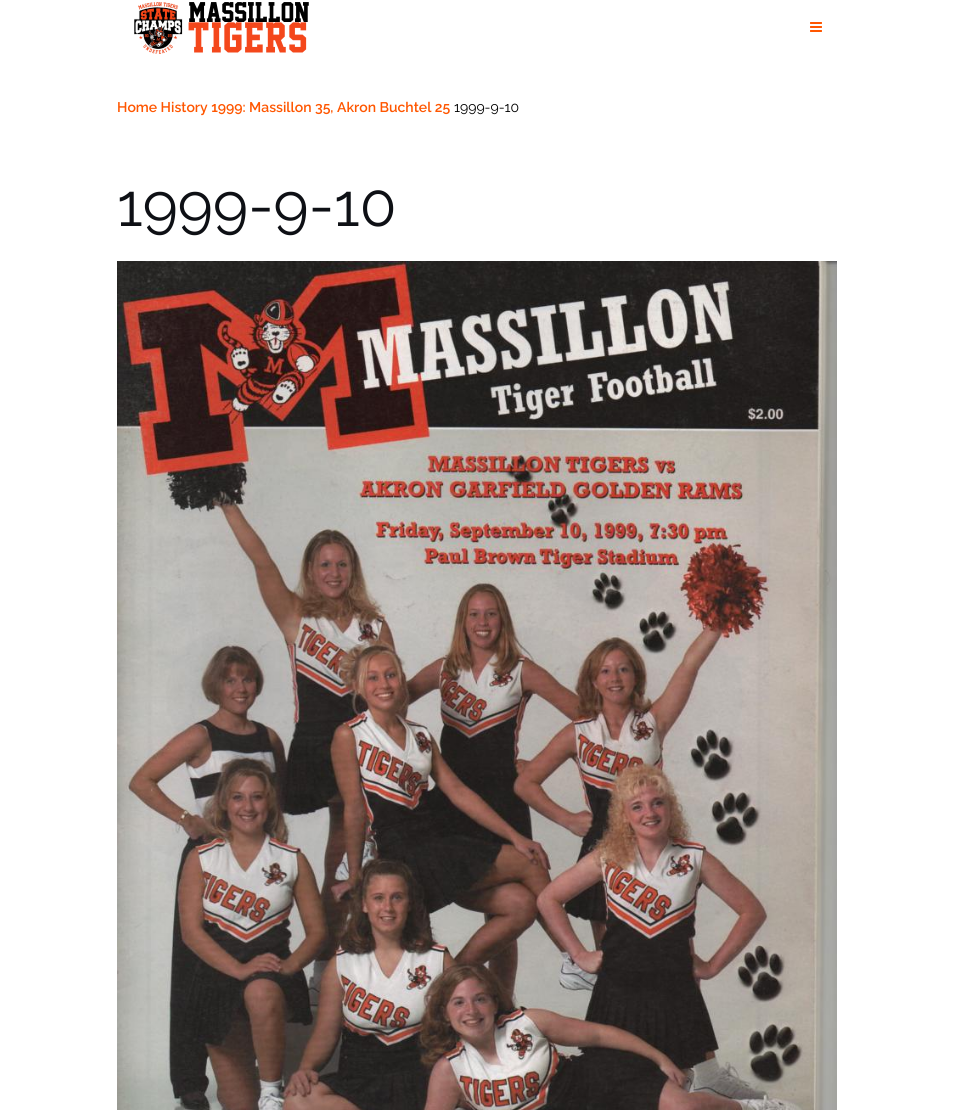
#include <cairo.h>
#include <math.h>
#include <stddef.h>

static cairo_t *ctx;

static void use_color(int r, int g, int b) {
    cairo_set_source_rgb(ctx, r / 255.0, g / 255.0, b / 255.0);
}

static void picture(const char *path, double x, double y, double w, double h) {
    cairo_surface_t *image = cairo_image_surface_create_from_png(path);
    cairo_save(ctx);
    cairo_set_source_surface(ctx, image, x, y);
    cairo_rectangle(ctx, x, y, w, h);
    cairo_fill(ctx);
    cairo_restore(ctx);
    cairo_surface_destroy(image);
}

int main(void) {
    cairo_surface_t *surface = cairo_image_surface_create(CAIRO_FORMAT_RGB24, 954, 1110);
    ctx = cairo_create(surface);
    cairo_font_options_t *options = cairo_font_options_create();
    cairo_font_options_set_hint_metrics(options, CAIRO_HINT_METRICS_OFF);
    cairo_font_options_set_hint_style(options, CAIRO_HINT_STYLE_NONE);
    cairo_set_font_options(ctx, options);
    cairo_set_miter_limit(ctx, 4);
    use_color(255, 255, 255);
    cairo_paint(ctx);
    picture("img1.png", 134, 2, 175, 52);
    picture("img2.png", 810, 22, 12, 10);
    cairo_select_font_face(ctx, "Raleway SemiBold", CAIRO_FONT_SLANT_NORMAL, CAIRO_FONT_WEIGHT_NORMAL);
    cairo_set_font_size(ctx, 14);
    use_color(255, 86, 0);
    cairo_move_to(ctx, 117, 112);
    cairo_show_text(ctx, "Home History 1999: Massillon 35, Akron Buchtel 25");
    cairo_select_font_face(ctx, "Raleway", CAIRO_FONT_SLANT_NORMAL, CAIRO_FONT_WEIGHT_NORMAL);
    use_color(0, 0, 0);
    cairo_move_to(ctx, 454, 112);
    cairo_show_text(ctx, "1999-9-10");
    cairo_set_font_size(ctx, 60);
    use_color(14, 16, 21);
    cairo_move_to(ctx, 117, 226);
    cairo_show_text(ctx, "1999-9-10");
    picture("img3.png", 117, 261, 720, 849);
    cairo_surface_write_to_png(surface, "result.png");
    cairo_font_options_destroy(options);
    cairo_destroy(ctx);
    cairo_surface_destroy(surface);
    return 0;
}
